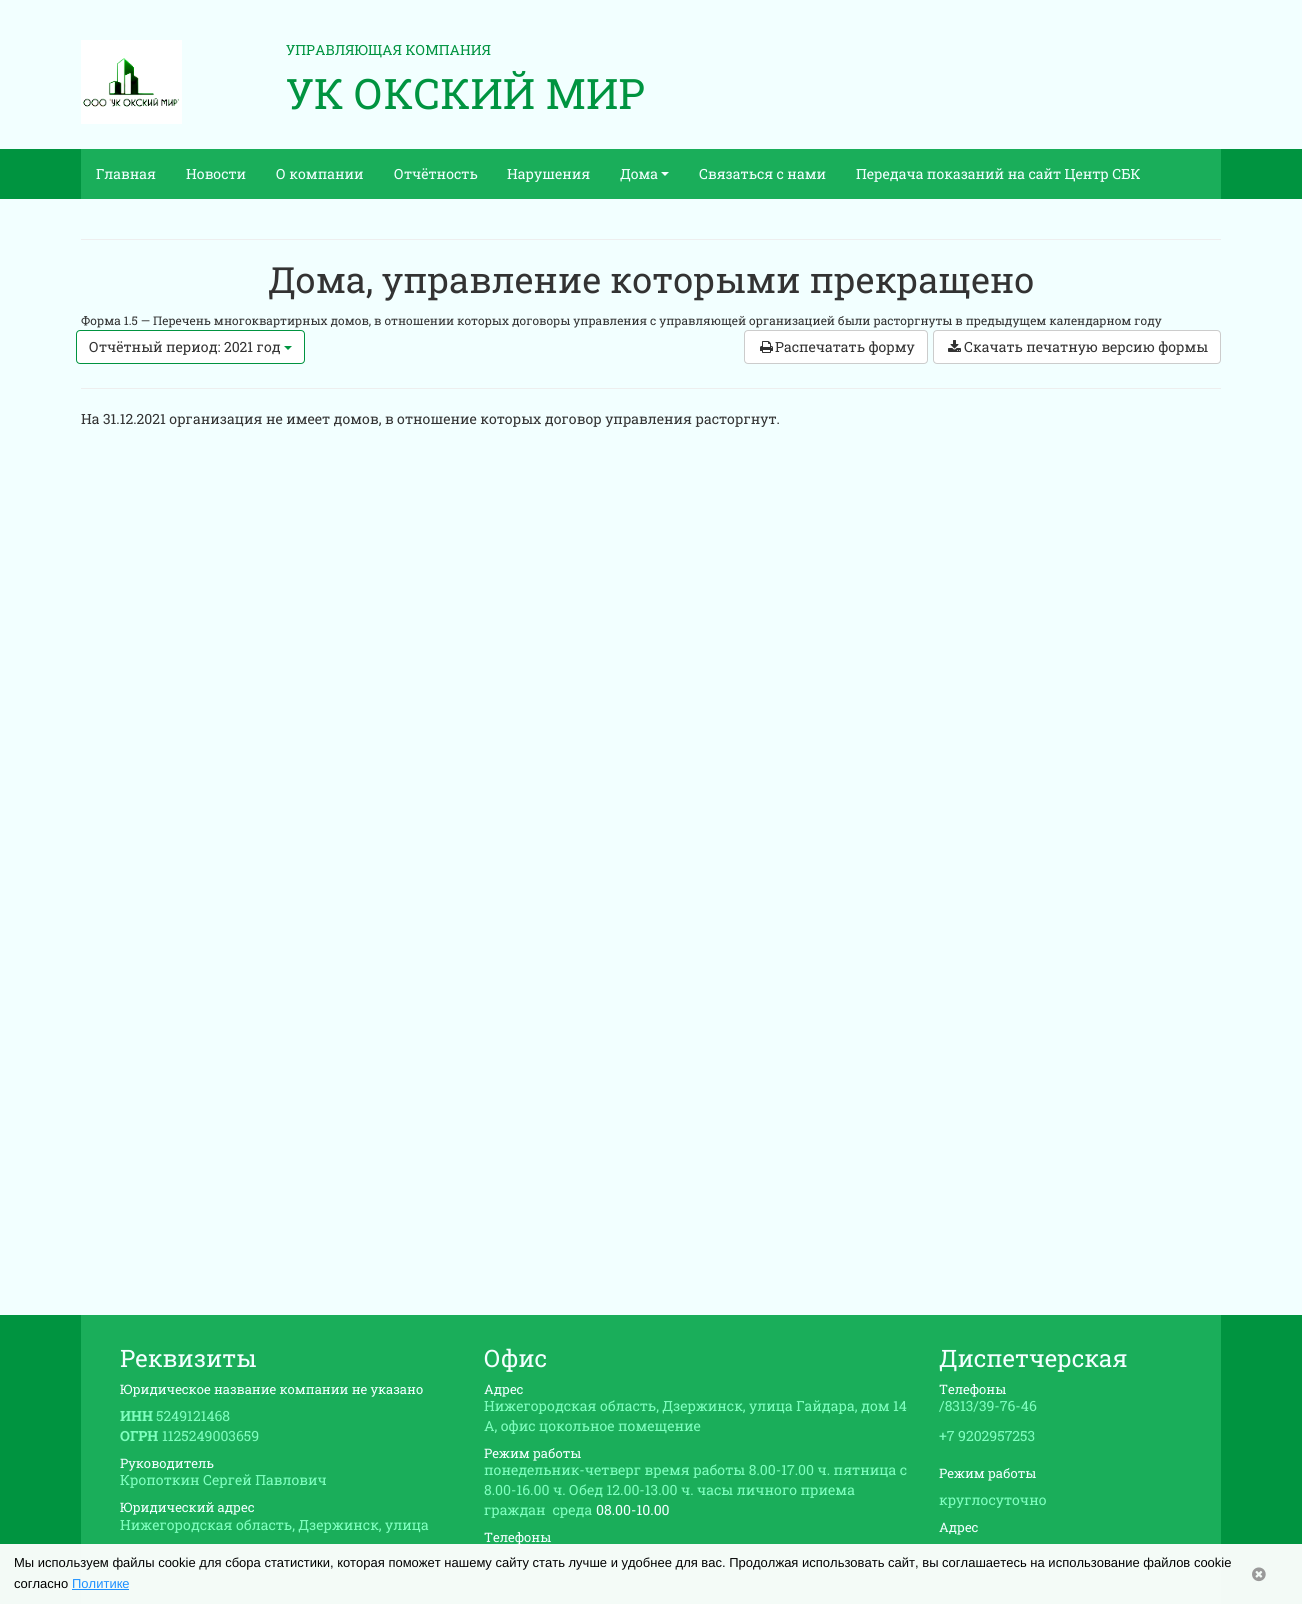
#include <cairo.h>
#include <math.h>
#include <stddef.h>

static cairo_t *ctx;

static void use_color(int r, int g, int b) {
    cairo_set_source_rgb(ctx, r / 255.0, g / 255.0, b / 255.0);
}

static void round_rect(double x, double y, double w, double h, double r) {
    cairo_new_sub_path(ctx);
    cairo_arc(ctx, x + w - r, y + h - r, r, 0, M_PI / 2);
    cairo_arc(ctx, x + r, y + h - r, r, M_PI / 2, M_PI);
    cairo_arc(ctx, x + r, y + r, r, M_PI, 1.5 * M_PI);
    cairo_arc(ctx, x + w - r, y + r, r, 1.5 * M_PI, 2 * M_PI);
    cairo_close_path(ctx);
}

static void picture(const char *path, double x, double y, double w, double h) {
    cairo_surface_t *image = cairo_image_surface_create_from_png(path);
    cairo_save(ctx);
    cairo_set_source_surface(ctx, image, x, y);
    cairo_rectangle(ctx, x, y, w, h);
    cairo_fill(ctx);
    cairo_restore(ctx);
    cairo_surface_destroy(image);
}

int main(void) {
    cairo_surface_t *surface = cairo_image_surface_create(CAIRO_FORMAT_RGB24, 1302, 1604);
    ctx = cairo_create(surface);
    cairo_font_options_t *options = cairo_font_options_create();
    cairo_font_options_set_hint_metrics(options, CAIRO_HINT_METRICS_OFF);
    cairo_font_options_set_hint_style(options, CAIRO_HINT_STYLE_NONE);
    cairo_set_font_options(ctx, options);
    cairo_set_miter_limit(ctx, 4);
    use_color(242, 255, 255);
    cairo_paint(ctx);
    picture("img1.png", 81, 40, 101, 84);
    cairo_select_font_face(ctx, "Roboto Slab", CAIRO_FONT_SLANT_NORMAL, CAIRO_FONT_WEIGHT_NORMAL);
    cairo_set_font_size(ctx, 14);
    use_color(0, 148, 64);
    cairo_move_to(ctx, 286, 55);
    cairo_show_text(ctx, "УПРАВЛЯЮЩАЯ КОМПАНИЯ");
    cairo_set_font_size(ctx, 42);
    cairo_move_to(ctx, 286, 109);
    cairo_show_text(ctx, "УК ОКСКИЙ МИР");
    cairo_rectangle(ctx, 0, 149, 1302, 50);
    cairo_fill(ctx);
    use_color(26, 174, 90);
    cairo_rectangle(ctx, 81, 149, 1140, 50);
    cairo_fill(ctx);
    cairo_set_font_size(ctx, 14);
    use_color(242, 255, 255);
    cairo_move_to(ctx, 96, 179);
    cairo_show_text(ctx, "Главная");
    cairo_move_to(ctx, 186, 179);
    cairo_show_text(ctx, "Новости");
    cairo_move_to(ctx, 276, 179);
    cairo_show_text(ctx, "О компании");
    cairo_move_to(ctx, 394, 179);
    cairo_show_text(ctx, "Отчётность");
    cairo_move_to(ctx, 507, 179);
    cairo_show_text(ctx, "Нарушения");
    cairo_move_to(ctx, 620, 179);
    cairo_show_text(ctx, "Дома");
    cairo_new_path(ctx);
    cairo_move_to(ctx, 661, 172);
    cairo_line_to(ctx, 669, 172);
    cairo_line_to(ctx, 665, 176);
    cairo_close_path(ctx);
    cairo_fill(ctx);
    cairo_move_to(ctx, 699, 179);
    cairo_show_text(ctx, "Связаться с нами");
    cairo_move_to(ctx, 856, 179);
    cairo_show_text(ctx, "Передача показаний на сайт Центр СБК");
    use_color(238, 238, 238);
    cairo_rectangle(ctx, 81, 388, 1140, 1);
    cairo_fill(ctx);
    cairo_rectangle(ctx, 81, 239, 1140, 1);
    cairo_fill(ctx);
    cairo_set_font_size(ctx, 36);
    use_color(51, 51, 51);
    cairo_move_to(ctx, 268, 293);
    cairo_show_text(ctx, "Дома, управление которыми прекращено");
    cairo_set_font_size(ctx, 11.9);
    cairo_move_to(ctx, 81, 325);
    cairo_show_text(ctx, "Форма 1.5 — Перечень многоквартирных домов, в отношении которых договоры управления с управляющей организацией были расторгнуты в предыдущем календарном году");
    use_color(255, 255, 255);
    round_rect(76.5, 330.5, 228, 33, 3.5);
    cairo_fill_preserve(ctx);
    use_color(0, 148, 64);
    cairo_set_line_width(ctx, 1);
    cairo_stroke(ctx);
    cairo_set_font_size(ctx, 14);
    use_color(51, 51, 51);
    cairo_move_to(ctx, 89, 352);
    cairo_show_text(ctx, "Отчётный период: 2021 год");
    use_color(0, 148, 64);
    cairo_new_path(ctx);
    cairo_move_to(ctx, 284, 346);
    cairo_line_to(ctx, 292, 346);
    cairo_line_to(ctx, 288, 350);
    cairo_close_path(ctx);
    cairo_fill(ctx);
    use_color(255, 255, 255);
    round_rect(744.5, 330.5, 183, 33, 3.5);
    cairo_fill_preserve(ctx);
    use_color(204, 204, 204);
    cairo_stroke(ctx);
    picture("img2.png", 760, 341, 13, 12);
    use_color(51, 51, 51);
    cairo_move_to(ctx, 775, 352);
    cairo_show_text(ctx, "Распечатать форму");
    use_color(255, 255, 255);
    round_rect(933.5, 330.5, 287, 33, 3.5);
    cairo_fill_preserve(ctx);
    use_color(204, 204, 204);
    cairo_stroke(ctx);
    picture("img3.png", 948, 340, 13, 12);
    use_color(51, 51, 51);
    cairo_move_to(ctx, 964, 352);
    cairo_show_text(ctx, "Скачать печатную версию формы");
    cairo_move_to(ctx, 81, 424);
    cairo_show_text(ctx, "На 31.12.2021 организация не имеет домов, в отношение которых договор управления расторгнут.");
    use_color(0, 148, 64);
    cairo_rectangle(ctx, 0, 1315, 1302, 289);
    cairo_fill(ctx);
    use_color(26, 174, 90);
    cairo_rectangle(ctx, 81, 1315, 1140, 289);
    cairo_fill(ctx);
    cairo_set_font_size(ctx, 24);
    use_color(242, 255, 255);
    cairo_move_to(ctx, 120, 1367);
    cairo_show_text(ctx, "Реквизиты");
    cairo_set_font_size(ctx, 13);
    cairo_move_to(ctx, 120, 1394);
    cairo_show_text(ctx, "Юридическое название компании не указано");
    cairo_select_font_face(ctx, "Roboto Slab", CAIRO_FONT_SLANT_NORMAL, CAIRO_FONT_WEIGHT_BOLD);
    cairo_set_font_size(ctx, 14);
    use_color(127, 255, 191);
    cairo_move_to(ctx, 120, 1421);
    cairo_show_text(ctx, "ИНН");
    cairo_select_font_face(ctx, "Roboto Slab", CAIRO_FONT_SLANT_NORMAL, CAIRO_FONT_WEIGHT_NORMAL);
    cairo_move_to(ctx, 156, 1421);
    cairo_show_text(ctx, "5249121468");
    cairo_select_font_face(ctx, "Roboto Slab", CAIRO_FONT_SLANT_NORMAL, CAIRO_FONT_WEIGHT_BOLD);
    cairo_move_to(ctx, 120, 1441);
    cairo_show_text(ctx, "ОГРН");
    cairo_select_font_face(ctx, "Roboto Slab", CAIRO_FONT_SLANT_NORMAL, CAIRO_FONT_WEIGHT_NORMAL);
    cairo_move_to(ctx, 162, 1441);
    cairo_show_text(ctx, "1125249003659");
    cairo_set_font_size(ctx, 13);
    use_color(242, 255, 255);
    cairo_move_to(ctx, 120, 1468);
    cairo_show_text(ctx, "Руководитель");
    cairo_set_font_size(ctx, 14);
    use_color(127, 255, 191);
    cairo_move_to(ctx, 120, 1485);
    cairo_show_text(ctx, "Кропоткин Сергей Павлович");
    cairo_set_font_size(ctx, 13);
    use_color(242, 255, 255);
    cairo_move_to(ctx, 120, 1512);
    cairo_show_text(ctx, "Юридический адрес");
    cairo_set_font_size(ctx, 14);
    use_color(127, 255, 191);
    cairo_move_to(ctx, 120, 1530);
    cairo_show_text(ctx, "Нижегородская область, Дзержинск, улица");
    cairo_set_font_size(ctx, 24);
    use_color(242, 255, 255);
    cairo_move_to(ctx, 484, 1367);
    cairo_show_text(ctx, "Офис");
    cairo_set_font_size(ctx, 13);
    cairo_move_to(ctx, 484, 1394);
    cairo_show_text(ctx, "Адрес");
    cairo_set_font_size(ctx, 14);
    use_color(127, 255, 191);
    cairo_move_to(ctx, 484, 1411);
    cairo_show_text(ctx, "Нижегородская область, Дзержинск, улица Гайдара, дом 14");
    cairo_move_to(ctx, 484, 1431);
    cairo_show_text(ctx, "А, офис цокольное помещение");
    cairo_set_font_size(ctx, 13);
    use_color(242, 255, 255);
    cairo_move_to(ctx, 484, 1458);
    cairo_show_text(ctx, "Режим работы");
    cairo_set_font_size(ctx, 14);
    use_color(127, 255, 191);
    cairo_move_to(ctx, 484, 1475);
    cairo_show_text(ctx, "понедельник-четверг время работы 8.00-17.00 ч. пятница с");
    cairo_move_to(ctx, 484, 1495);
    cairo_show_text(ctx, "8.00-16.00 ч. Обед 12.00-13.00 ч. часы личного приема");
    cairo_move_to(ctx, 484, 1515);
    cairo_show_text(ctx, "граждан  среда");
    use_color(242, 255, 255);
    cairo_move_to(ctx, 596, 1515);
    cairo_show_text(ctx, "08.00-10.00");
    cairo_set_font_size(ctx, 13);
    cairo_move_to(ctx, 484, 1542);
    cairo_show_text(ctx, "Телефоны");
    cairo_set_font_size(ctx, 24);
    cairo_move_to(ctx, 939, 1367);
    cairo_show_text(ctx, "Диспетчерская");
    cairo_set_font_size(ctx, 13);
    cairo_move_to(ctx, 939, 1394);
    cairo_show_text(ctx, "Телефоны");
    cairo_set_font_size(ctx, 14);
    use_color(127, 255, 191);
    cairo_move_to(ctx, 939, 1411);
    cairo_show_text(ctx, "/8313/39-76-46");
    cairo_move_to(ctx, 939, 1441);
    cairo_show_text(ctx, "+7 9202957253");
    cairo_set_font_size(ctx, 13);
    use_color(242, 255, 255);
    cairo_move_to(ctx, 939, 1478);
    cairo_show_text(ctx, "Режим работы");
    cairo_set_font_size(ctx, 14);
    use_color(127, 255, 191);
    cairo_move_to(ctx, 939, 1505);
    cairo_show_text(ctx, "круглосуточно");
    cairo_set_font_size(ctx, 13);
    use_color(242, 255, 255);
    cairo_move_to(ctx, 939, 1532);
    cairo_show_text(ctx, "Адрес");
    cairo_set_source_rgba(ctx, 1, 1, 1, 0.95);
    cairo_rectangle(ctx, 0, 1544, 1302, 60);
    cairo_fill(ctx);
    cairo_select_font_face(ctx, "Liberation Sans", CAIRO_FONT_SLANT_NORMAL, CAIRO_FONT_WEIGHT_NORMAL);
    use_color(0, 0, 0);
    cairo_move_to(ctx, 14, 1567);
    cairo_show_text(ctx, "Мы используем файлы cookie для сбора статистики, которая поможет нашему сайту стать лучше и удобнее для вас. Продолжая использовать сайт, вы соглашаетесь на использование файлов cookie");
    cairo_move_to(ctx, 14, 1588);
    cairo_show_text(ctx, "согласно");
    use_color(30, 144, 255);
    cairo_move_to(ctx, 72, 1588);
    cairo_show_text(ctx, "Политике");
    cairo_rectangle(ctx, 72, 1589, 57, 1);
    cairo_fill(ctx);
    picture("img4.png", 1252, 1567, 14, 15);
    cairo_surface_write_to_png(surface, "result.png");
    cairo_font_options_destroy(options);
    cairo_destroy(ctx);
    cairo_surface_destroy(surface);
    return 0;
}
